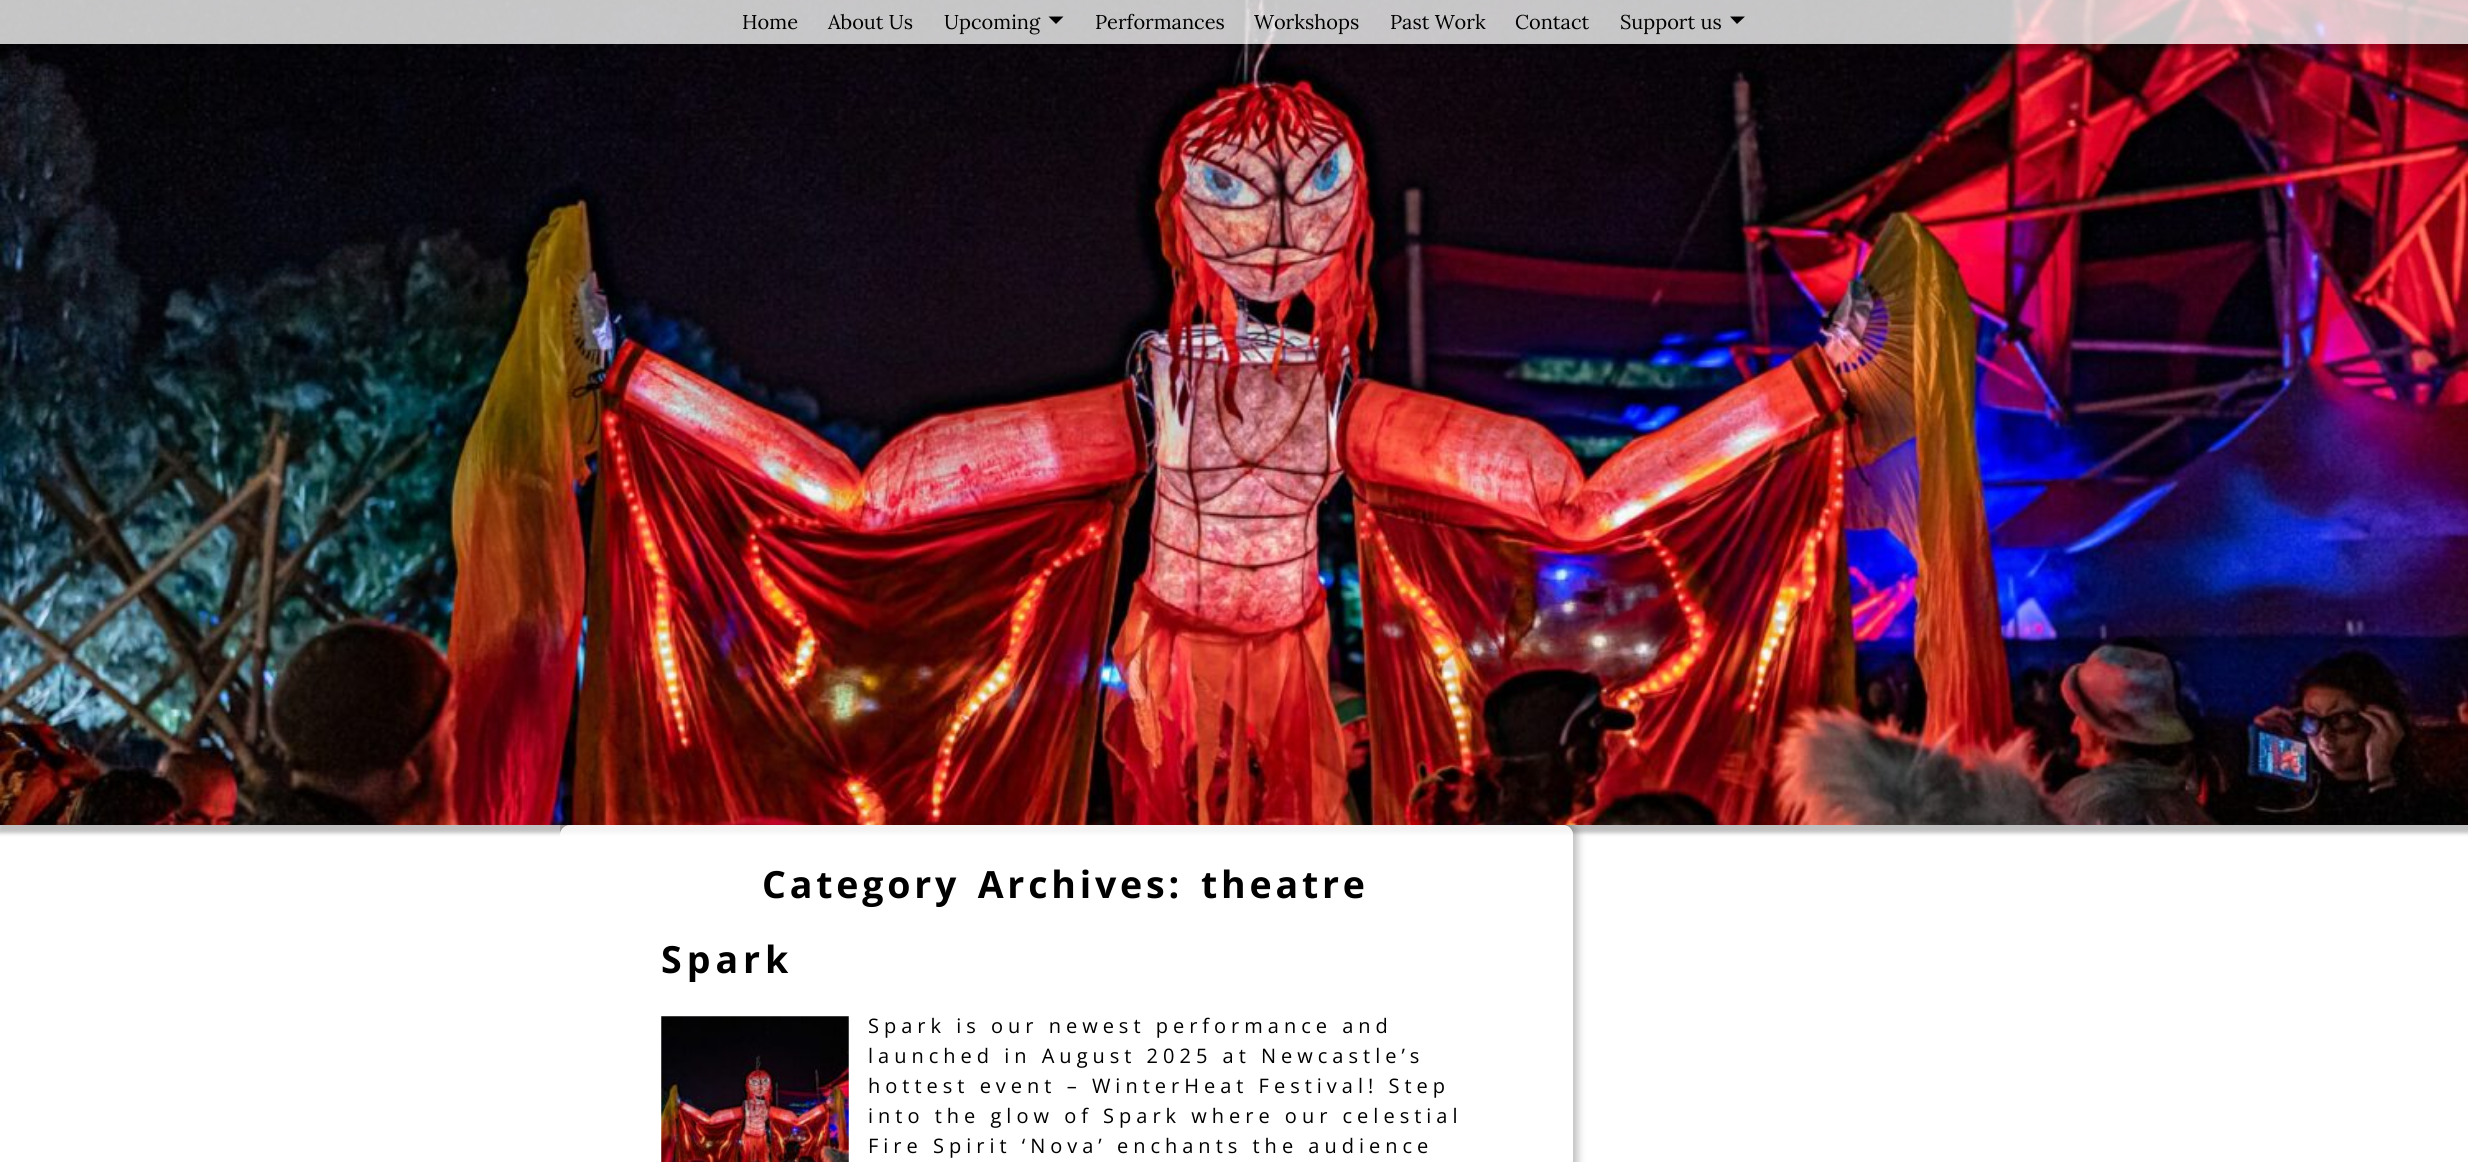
#include <cairo.h>
#include <math.h>
#include <stddef.h>

static cairo_t *ctx;

static void use_color(int r, int g, int b) {
    cairo_set_source_rgb(ctx, r / 255.0, g / 255.0, b / 255.0);
}

static void spaced_text(double x, double y, const char *s, double letter, double word) {
    cairo_move_to(ctx, x, y);
    while (*s) {
        char ch[5] = {0};
        int n = 0;
        do ch[n++] = *s++; while ((*s & 0xC0) == 0x80);
        cairo_show_text(ctx, ch);
        cairo_rel_move_to(ctx, letter + word * (*ch == ' '), 0);
    }
}

static void round_rect(double x, double y, double w, double h, double r) {
    cairo_new_sub_path(ctx);
    cairo_arc(ctx, x + w - r, y + h - r, r, 0, M_PI / 2);
    cairo_arc(ctx, x + r, y + h - r, r, M_PI / 2, M_PI);
    cairo_arc(ctx, x + r, y + r, r, M_PI, 1.5 * M_PI);
    cairo_arc(ctx, x + w - r, y + r, r, 1.5 * M_PI, 2 * M_PI);
    cairo_close_path(ctx);
}

static void shadow(double x, double y, double w, double h, double r, double blur, double alpha) {
    cairo_push_group_with_content(ctx, CAIRO_CONTENT_ALPHA);
    cairo_set_operator(ctx, CAIRO_OPERATOR_SOURCE);
    for (int i = 15; i >= -15 && fmin(w, h) + blur * i / 3 > 0; i -= 2) {
        double e = blur * i / 6;
        cairo_set_source_rgba(ctx, 0, 0, 0, alpha * erfc((i - 1) / 8.5) / 2);
        round_rect(x - e, y - e, w + 2 * e, h + 2 * e, fmax(0, fmin(r + e + blur * .6, fmin(w, h) / 2 + e)));
        cairo_fill(ctx);
    }
    cairo_pattern_t *soft = cairo_pop_group(ctx);
    cairo_mask(ctx, soft);
    cairo_pattern_destroy(soft);
}

static void picture(const char *path, double x, double y, double w, double h) {
    cairo_surface_t *image = cairo_image_surface_create_from_png(path);
    cairo_save(ctx);
    cairo_set_source_surface(ctx, image, x, y);
    cairo_rectangle(ctx, x, y, w, h);
    cairo_fill(ctx);
    cairo_restore(ctx);
    cairo_surface_destroy(image);
}

int main(void) {
    cairo_surface_t *surface = cairo_image_surface_create(CAIRO_FORMAT_RGB24, 2468, 1162);
    ctx = cairo_create(surface);
    cairo_font_options_t *options = cairo_font_options_create();
    cairo_font_options_set_hint_metrics(options, CAIRO_HINT_METRICS_OFF);
    cairo_font_options_set_hint_style(options, CAIRO_HINT_STYLE_NONE);
    cairo_set_font_options(ctx, options);
    cairo_set_miter_limit(ctx, 4);
    use_color(255, 255, 255);
    cairo_paint(ctx);
    use_color(0, 0, 0);
    shadow(-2, -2, 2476, 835, 0, 2, 0.25);
    picture("img1.png", 0, 0, 2468, 825);
    cairo_save(ctx);
    cairo_set_fill_rule(ctx, CAIRO_FILL_RULE_EVEN_ODD);
    cairo_new_path(ctx);
    cairo_move_to(ctx, 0, 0);
    cairo_line_to(ctx, 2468, 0);
    cairo_line_to(ctx, 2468, 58);
    cairo_line_to(ctx, 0, 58);
    cairo_close_path(ctx);
    cairo_move_to(ctx, 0, 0);
    cairo_line_to(ctx, 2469, 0);
    cairo_line_to(ctx, 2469, 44);
    cairo_line_to(ctx, 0, 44);
    cairo_close_path(ctx);
    cairo_clip(ctx);
    shadow(-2, -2, 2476, 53, 0, 2, 0.25);
    cairo_restore(ctx);
    cairo_set_source_rgba(ctx, 1, 1, 1, 0.77);
    cairo_rectangle(ctx, 0, 0, 2468, 44);
    cairo_fill(ctx);
    cairo_select_font_face(ctx, "Lora", CAIRO_FONT_SLANT_NORMAL, CAIRO_FONT_WEIGHT_NORMAL);
    cairo_set_font_size(ctx, 20);
    use_color(0, 0, 0);
    cairo_move_to(ctx, 742, 29);
    cairo_show_text(ctx, "Home");
    cairo_move_to(ctx, 828, 29);
    cairo_show_text(ctx, "About Us");
    cairo_move_to(ctx, 944, 29);
    cairo_show_text(ctx, "Upcoming");
    cairo_new_path(ctx);
    cairo_move_to(ctx, 1048.5, 16.5);
    cairo_line_to(ctx, 1063.5, 16.5);
    cairo_line_to(ctx, 1056, 24);
    cairo_close_path(ctx);
    cairo_fill(ctx);
    cairo_move_to(ctx, 1095, 29);
    cairo_show_text(ctx, "Performances");
    cairo_move_to(ctx, 1254, 29);
    cairo_show_text(ctx, "Workshops");
    cairo_move_to(ctx, 1390, 29);
    cairo_show_text(ctx, "Past Work");
    cairo_move_to(ctx, 1515, 29);
    cairo_show_text(ctx, "Contact");
    cairo_move_to(ctx, 1620, 29);
    cairo_show_text(ctx, "Support us");
    cairo_new_path(ctx);
    cairo_move_to(ctx, 1730, 16.5);
    cairo_line_to(ctx, 1745, 16.5);
    cairo_line_to(ctx, 1737, 24);
    cairo_close_path(ctx);
    cairo_fill(ctx);
    cairo_save(ctx);
    cairo_rectangle(ctx, 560, 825, 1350, 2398);
    cairo_clip(ctx);
    cairo_set_fill_rule(ctx, CAIRO_FILL_RULE_EVEN_ODD);
    cairo_new_path(ctx);
    cairo_move_to(ctx, 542, 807);
    cairo_line_to(ctx, 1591, 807);
    cairo_line_to(ctx, 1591, 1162);
    cairo_line_to(ctx, 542, 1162);
    cairo_close_path(ctx);
    cairo_move_to(ctx, 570, 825);
    cairo_line_to(ctx, 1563, 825);
    cairo_curve_to(ctx, 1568.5, 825, 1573, 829.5, 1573, 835);
    cairo_line_to(ctx, 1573, 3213);
    cairo_curve_to(ctx, 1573, 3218.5, 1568.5, 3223, 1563, 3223);
    cairo_line_to(ctx, 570, 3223);
    cairo_curve_to(ctx, 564.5, 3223, 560, 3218.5, 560, 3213);
    cairo_line_to(ctx, 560, 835);
    cairo_curve_to(ctx, 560, 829.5, 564.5, 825, 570, 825);
    cairo_close_path(ctx);
    cairo_clip(ctx);
    use_color(0, 0, 0);
    shadow(555, 820, 1023, 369, 15, 4, 0.25);
    cairo_restore(ctx);
    cairo_set_source_rgba(ctx, 1, 1, 1, 0.81);
    round_rect(560, 825, 1013, 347, 10);
    cairo_fill(ctx);
    cairo_select_font_face(ctx, "Open Sans", CAIRO_FONT_SLANT_NORMAL, CAIRO_FONT_WEIGHT_BOLD);
    cairo_set_font_size(ctx, 37.5);
    use_color(0, 0, 0);
    spaced_text(762, 898, "Category Archives:", 3.8, 4);
    spaced_text(1201, 898, "theatre", 3.8, 0);
    spaced_text(661, 973, "Spark", 5, 0);
    picture("img2.png", 661, 1016, 188, 146);
    cairo_select_font_face(ctx, "Open Sans", CAIRO_FONT_SLANT_NORMAL, CAIRO_FONT_WEIGHT_NORMAL);
    cairo_set_font_size(ctx, 20);
    spaced_text(868, 1033, "Spark is our newest performance and", 5, 0);
    spaced_text(868, 1063, "launched in August 2025 at Newcastle’s", 5, 0);
    spaced_text(868, 1093, "hottest event – WinterHeat Festival! Step", 5, 0);
    spaced_text(868, 1123, "into the glow of Spark where our celestial", 5, 0);
    spaced_text(868, 1153, "Fire Spirit ‘Nova’ enchants the audience", 5, 0);
    cairo_surface_write_to_png(surface, "result.png");
    cairo_font_options_destroy(options);
    cairo_destroy(ctx);
    cairo_surface_destroy(surface);
    return 0;
}
